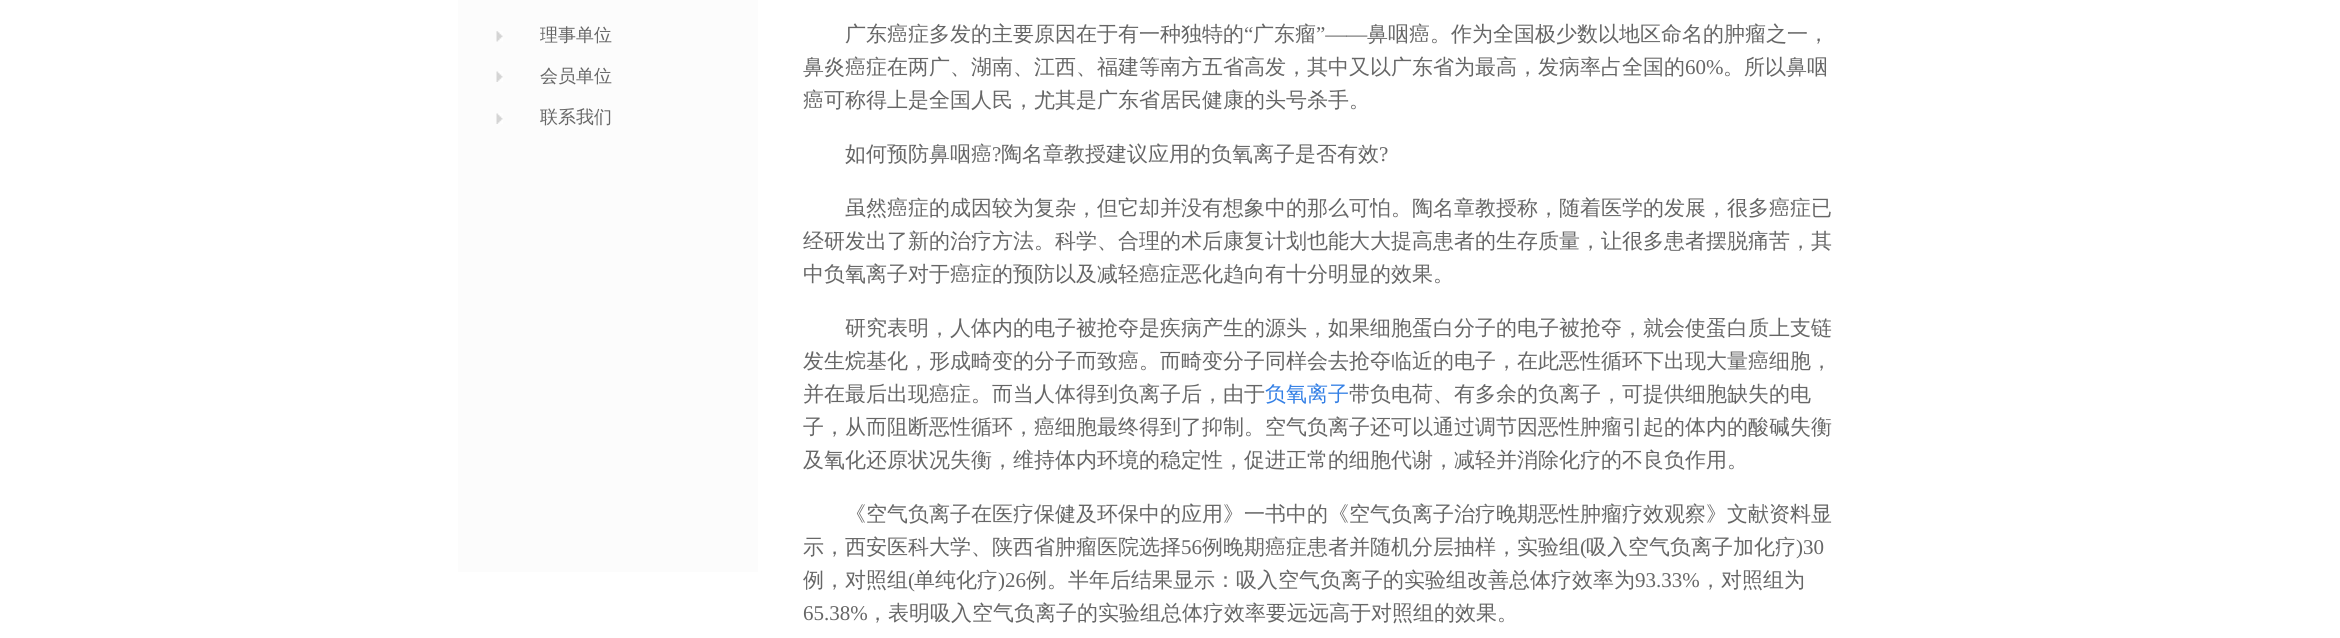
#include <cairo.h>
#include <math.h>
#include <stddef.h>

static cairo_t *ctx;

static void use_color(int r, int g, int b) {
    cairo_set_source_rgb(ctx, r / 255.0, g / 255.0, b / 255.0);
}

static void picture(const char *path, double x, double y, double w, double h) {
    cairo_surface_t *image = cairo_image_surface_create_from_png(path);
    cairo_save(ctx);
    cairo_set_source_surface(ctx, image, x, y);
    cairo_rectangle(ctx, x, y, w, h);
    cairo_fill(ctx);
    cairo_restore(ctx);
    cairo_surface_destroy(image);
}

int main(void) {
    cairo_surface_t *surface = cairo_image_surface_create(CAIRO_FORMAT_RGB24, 2340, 638);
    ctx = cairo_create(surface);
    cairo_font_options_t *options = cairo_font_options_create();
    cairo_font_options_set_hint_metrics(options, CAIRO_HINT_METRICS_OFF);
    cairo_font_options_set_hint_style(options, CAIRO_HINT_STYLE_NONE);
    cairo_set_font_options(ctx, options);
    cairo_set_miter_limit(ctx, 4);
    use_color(255, 255, 255);
    cairo_paint(ctx);
    use_color(252, 252, 252);
    cairo_rectangle(ctx, 458, 0, 300, 572);
    cairo_fill(ctx);
    picture("img1.png", 496, 31, 7, 11);
    cairo_select_font_face(ctx, "WenQuanYi Zen Hei Medium", CAIRO_FONT_SLANT_NORMAL, CAIRO_FONT_WEIGHT_NORMAL);
    cairo_set_font_size(ctx, 18);
    use_color(102, 102, 102);
    cairo_move_to(ctx, 540, 41);
    cairo_show_text(ctx, "理事单位");
    picture("img2.png", 496, 71, 7, 11);
    cairo_move_to(ctx, 540, 82);
    cairo_show_text(ctx, "会员单位");
    picture("img2.png", 496, 113, 7, 11);
    cairo_move_to(ctx, 540, 123);
    cairo_show_text(ctx, "联系我们");
    cairo_set_font_size(ctx, 21);
    cairo_move_to(ctx, 845, 41);
    cairo_show_text(ctx, "广东癌症多发的主要原因在于有一种独特的");
    cairo_select_font_face(ctx, "Liberation Serif", CAIRO_FONT_SLANT_NORMAL, CAIRO_FONT_WEIGHT_NORMAL);
    cairo_move_to(ctx, 1244, 41);
    cairo_show_text(ctx, "“");
    cairo_select_font_face(ctx, "WenQuanYi Zen Hei Medium", CAIRO_FONT_SLANT_NORMAL, CAIRO_FONT_WEIGHT_NORMAL);
    cairo_move_to(ctx, 1253, 41);
    cairo_show_text(ctx, "广东瘤");
    cairo_select_font_face(ctx, "Liberation Serif", CAIRO_FONT_SLANT_NORMAL, CAIRO_FONT_WEIGHT_NORMAL);
    cairo_move_to(ctx, 1316, 41);
    cairo_show_text(ctx, "”——");
    cairo_select_font_face(ctx, "WenQuanYi Zen Hei Medium", CAIRO_FONT_SLANT_NORMAL, CAIRO_FONT_WEIGHT_NORMAL);
    cairo_move_to(ctx, 1367, 41);
    cairo_show_text(ctx, "鼻咽癌。作为全国极少数以地区命名的肿瘤之一，");
    cairo_move_to(ctx, 803, 74);
    cairo_show_text(ctx, "鼻炎癌症在两广、湖南、江西、福建等南方五省高发，其中又以广东省为最高，发病率占全国的");
    cairo_select_font_face(ctx, "Liberation Serif", CAIRO_FONT_SLANT_NORMAL, CAIRO_FONT_WEIGHT_NORMAL);
    cairo_move_to(ctx, 1685, 74);
    cairo_show_text(ctx, "60%");
    cairo_select_font_face(ctx, "WenQuanYi Zen Hei Medium", CAIRO_FONT_SLANT_NORMAL, CAIRO_FONT_WEIGHT_NORMAL);
    cairo_move_to(ctx, 1723, 74);
    cairo_show_text(ctx, "。所以鼻咽");
    cairo_move_to(ctx, 803, 107);
    cairo_show_text(ctx, "癌可称得上是全国人民，尤其是广东省居民健康的头号杀手。");
    cairo_move_to(ctx, 845, 161);
    cairo_show_text(ctx, "如何预防鼻咽癌");
    cairo_select_font_face(ctx, "Liberation Serif", CAIRO_FONT_SLANT_NORMAL, CAIRO_FONT_WEIGHT_NORMAL);
    cairo_move_to(ctx, 992, 161);
    cairo_show_text(ctx, "?");
    cairo_select_font_face(ctx, "WenQuanYi Zen Hei Medium", CAIRO_FONT_SLANT_NORMAL, CAIRO_FONT_WEIGHT_NORMAL);
    cairo_move_to(ctx, 1001, 161);
    cairo_show_text(ctx, "陶名章教授建议应用的负氧离子是否有效");
    cairo_select_font_face(ctx, "Liberation Serif", CAIRO_FONT_SLANT_NORMAL, CAIRO_FONT_WEIGHT_NORMAL);
    cairo_move_to(ctx, 1379, 161);
    cairo_show_text(ctx, "?");
    cairo_select_font_face(ctx, "WenQuanYi Zen Hei Medium", CAIRO_FONT_SLANT_NORMAL, CAIRO_FONT_WEIGHT_NORMAL);
    cairo_move_to(ctx, 845, 215);
    cairo_show_text(ctx, "虽然癌症的成因较为复杂，但它却并没有想象中的那么可怕。陶名章教授称，随着医学的发展，很多癌症已");
    cairo_move_to(ctx, 803, 248);
    cairo_show_text(ctx, "经研发出了新的治疗方法。科学、合理的术后康复计划也能大大提高患者的生存质量，让很多患者摆脱痛苦，其");
    cairo_move_to(ctx, 803, 281);
    cairo_show_text(ctx, "中负氧离子对于癌症的预防以及减轻癌症恶化趋向有十分明显的效果。");
    cairo_move_to(ctx, 845, 335);
    cairo_show_text(ctx, "研究表明，人体内的电子被抢夺是疾病产生的源头，如果细胞蛋白分子的电子被抢夺，就会使蛋白质上支链");
    cairo_move_to(ctx, 803, 368);
    cairo_show_text(ctx, "发生烷基化，形成畸变的分子而致癌。而畸变分子同样会去抢夺临近的电子，在此恶性循环下出现大量癌细胞，");
    cairo_move_to(ctx, 803, 401);
    cairo_show_text(ctx, "并在最后出现癌症。而当人体得到负离子后，由于");
    use_color(51, 127, 229);
    cairo_move_to(ctx, 1265, 401);
    cairo_show_text(ctx, "负氧离子");
    use_color(102, 102, 102);
    cairo_move_to(ctx, 1349, 401);
    cairo_show_text(ctx, "带负电荷、有多余的负离子，可提供细胞缺失的电");
    cairo_move_to(ctx, 803, 434);
    cairo_show_text(ctx, "子，从而阻断恶性循环，癌细胞最终得到了抑制。空气负离子还可以通过调节因恶性肿瘤引起的体内的酸碱失衡");
    cairo_move_to(ctx, 803, 467);
    cairo_show_text(ctx, "及氧化还原状况失衡，维持体内环境的稳定性，促进正常的细胞代谢，减轻并消除化疗的不良负作用。");
    cairo_move_to(ctx, 845, 521);
    cairo_show_text(ctx, "《空气负离子在医疗保健及环保中的应用》一书中的《空气负离子治疗晚期恶性肿瘤疗效观察》文献资料显");
    cairo_move_to(ctx, 803, 554);
    cairo_show_text(ctx, "示，西安医科大学、陕西省肿瘤医院选择");
    cairo_select_font_face(ctx, "Liberation Serif", CAIRO_FONT_SLANT_NORMAL, CAIRO_FONT_WEIGHT_NORMAL);
    cairo_move_to(ctx, 1181, 554);
    cairo_show_text(ctx, "56");
    cairo_select_font_face(ctx, "WenQuanYi Zen Hei Medium", CAIRO_FONT_SLANT_NORMAL, CAIRO_FONT_WEIGHT_NORMAL);
    cairo_move_to(ctx, 1202, 554);
    cairo_show_text(ctx, "例晚期癌症患者并随机分层抽样，实验组");
    cairo_select_font_face(ctx, "Liberation Serif", CAIRO_FONT_SLANT_NORMAL, CAIRO_FONT_WEIGHT_NORMAL);
    cairo_move_to(ctx, 1580, 554);
    cairo_show_text(ctx, "(");
    cairo_select_font_face(ctx, "WenQuanYi Zen Hei Medium", CAIRO_FONT_SLANT_NORMAL, CAIRO_FONT_WEIGHT_NORMAL);
    cairo_move_to(ctx, 1586, 554);
    cairo_show_text(ctx, "吸入空气负离子加化疗");
    cairo_select_font_face(ctx, "Liberation Serif", CAIRO_FONT_SLANT_NORMAL, CAIRO_FONT_WEIGHT_NORMAL);
    cairo_move_to(ctx, 1796, 554);
    cairo_show_text(ctx, ")30");
    cairo_select_font_face(ctx, "WenQuanYi Zen Hei Medium", CAIRO_FONT_SLANT_NORMAL, CAIRO_FONT_WEIGHT_NORMAL);
    cairo_move_to(ctx, 803, 587);
    cairo_show_text(ctx, "例，对照组");
    cairo_select_font_face(ctx, "Liberation Serif", CAIRO_FONT_SLANT_NORMAL, CAIRO_FONT_WEIGHT_NORMAL);
    cairo_move_to(ctx, 908, 587);
    cairo_show_text(ctx, "(");
    cairo_select_font_face(ctx, "WenQuanYi Zen Hei Medium", CAIRO_FONT_SLANT_NORMAL, CAIRO_FONT_WEIGHT_NORMAL);
    cairo_move_to(ctx, 914, 587);
    cairo_show_text(ctx, "单纯化疗");
    cairo_select_font_face(ctx, "Liberation Serif", CAIRO_FONT_SLANT_NORMAL, CAIRO_FONT_WEIGHT_NORMAL);
    cairo_move_to(ctx, 998, 587);
    cairo_show_text(ctx, ")26");
    cairo_select_font_face(ctx, "WenQuanYi Zen Hei Medium", CAIRO_FONT_SLANT_NORMAL, CAIRO_FONT_WEIGHT_NORMAL);
    cairo_move_to(ctx, 1026, 587);
    cairo_show_text(ctx, "例。半年后结果显示：吸入空气负离子的实验组改善总体疗效率为");
    cairo_select_font_face(ctx, "Liberation Serif", CAIRO_FONT_SLANT_NORMAL, CAIRO_FONT_WEIGHT_NORMAL);
    cairo_move_to(ctx, 1635, 587);
    cairo_show_text(ctx, "93.33%");
    cairo_select_font_face(ctx, "WenQuanYi Zen Hei Medium", CAIRO_FONT_SLANT_NORMAL, CAIRO_FONT_WEIGHT_NORMAL);
    cairo_move_to(ctx, 1700, 587);
    cairo_show_text(ctx, "，对照组为");
    cairo_select_font_face(ctx, "Liberation Serif", CAIRO_FONT_SLANT_NORMAL, CAIRO_FONT_WEIGHT_NORMAL);
    cairo_move_to(ctx, 803, 620);
    cairo_show_text(ctx, "65.38%");
    cairo_select_font_face(ctx, "WenQuanYi Zen Hei Medium", CAIRO_FONT_SLANT_NORMAL, CAIRO_FONT_WEIGHT_NORMAL);
    cairo_move_to(ctx, 867, 620);
    cairo_show_text(ctx, "，表明吸入空气负离子的实验组总体疗效率要远远高于对照组的效果。");
    cairo_surface_write_to_png(surface, "result.png");
    cairo_font_options_destroy(options);
    cairo_destroy(ctx);
    cairo_surface_destroy(surface);
    return 0;
}
